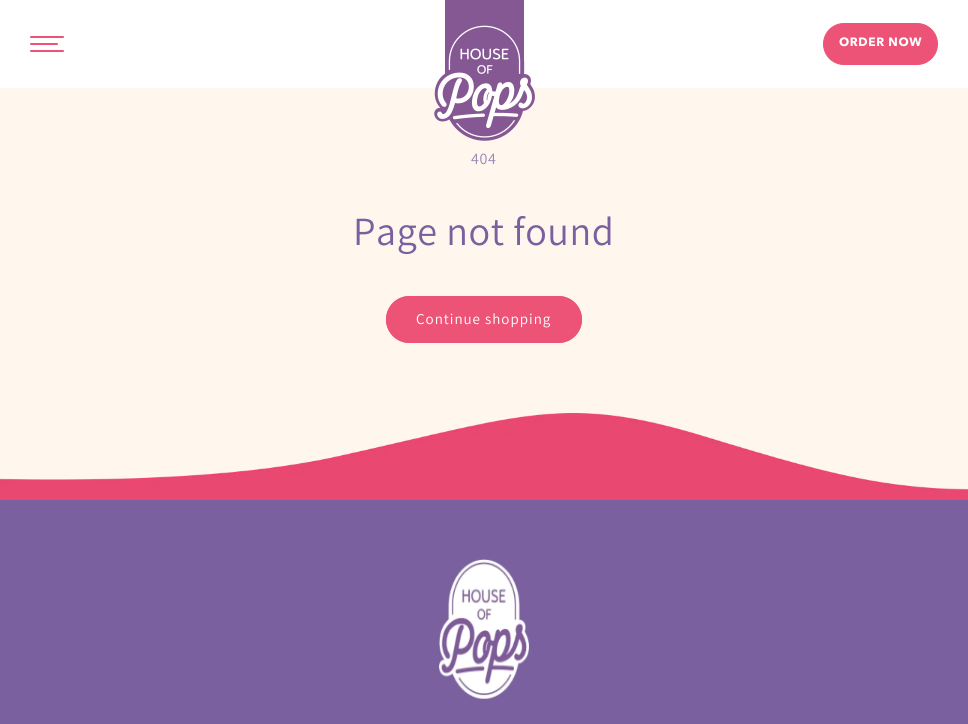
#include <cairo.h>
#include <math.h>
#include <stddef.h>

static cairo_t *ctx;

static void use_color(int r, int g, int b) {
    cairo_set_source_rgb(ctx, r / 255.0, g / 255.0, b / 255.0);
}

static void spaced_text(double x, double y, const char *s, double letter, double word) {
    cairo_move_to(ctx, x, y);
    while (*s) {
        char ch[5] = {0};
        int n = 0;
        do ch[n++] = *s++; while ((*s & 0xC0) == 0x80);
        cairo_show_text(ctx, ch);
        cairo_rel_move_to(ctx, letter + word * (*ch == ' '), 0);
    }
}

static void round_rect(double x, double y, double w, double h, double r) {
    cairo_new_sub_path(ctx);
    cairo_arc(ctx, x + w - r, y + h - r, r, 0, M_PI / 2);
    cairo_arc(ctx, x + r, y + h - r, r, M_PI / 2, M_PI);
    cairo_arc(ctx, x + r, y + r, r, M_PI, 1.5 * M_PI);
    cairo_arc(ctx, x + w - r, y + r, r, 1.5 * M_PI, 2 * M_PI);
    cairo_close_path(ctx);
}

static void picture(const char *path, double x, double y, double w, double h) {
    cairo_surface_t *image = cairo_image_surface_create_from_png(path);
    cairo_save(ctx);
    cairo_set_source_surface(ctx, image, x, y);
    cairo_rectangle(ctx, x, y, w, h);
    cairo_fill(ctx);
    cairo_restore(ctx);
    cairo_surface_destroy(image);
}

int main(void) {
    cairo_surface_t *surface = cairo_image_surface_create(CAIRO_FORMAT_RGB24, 968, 724);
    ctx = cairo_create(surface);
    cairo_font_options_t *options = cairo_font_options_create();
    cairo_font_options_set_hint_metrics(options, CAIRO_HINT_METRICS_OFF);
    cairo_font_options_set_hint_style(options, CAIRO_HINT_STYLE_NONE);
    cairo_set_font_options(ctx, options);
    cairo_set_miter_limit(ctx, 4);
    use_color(255, 246, 238);
    cairo_paint(ctx);
    use_color(255, 255, 255);
    cairo_rectangle(ctx, 0, 0, 968, 88);
    cairo_fill(ctx);
    cairo_new_path(ctx);
    cairo_move_to(ctx, 31, 37);
    cairo_line_to(ctx, 63, 37);
    cairo_move_to(ctx, 31, 51);
    cairo_line_to(ctx, 63, 51);
    cairo_move_to(ctx, 31, 44);
    cairo_line_to(ctx, 57, 44);
    use_color(237, 83, 119);
    cairo_set_line_cap(ctx, CAIRO_LINE_CAP_ROUND);
    cairo_stroke(ctx);
    picture("img1.png", 434, 0, 101, 141);
    round_rect(823.5, 23.5, 114, 41, 20.5);
    cairo_fill_preserve(ctx);
    cairo_set_line_width(ctx, 1);
    cairo_set_line_cap(ctx, CAIRO_LINE_CAP_BUTT);
    cairo_stroke(ctx);
    cairo_select_font_face(ctx, "Avenir Next", CAIRO_FONT_SLANT_NORMAL, CAIRO_FONT_WEIGHT_BOLD);
    cairo_set_font_size(ctx, 12);
    use_color(255, 255, 255);
    spaced_text(839, 46, "ORDER NOW", 0.6, 0);
    cairo_select_font_face(ctx, "Assistant", CAIRO_FONT_SLANT_NORMAL, CAIRO_FONT_WEIGHT_NORMAL);
    cairo_set_font_size(ctx, 16);
    use_color(156, 134, 179);
    spaced_text(471, 164, "404", 0.6, 0);
    cairo_set_font_size(ctx, 40);
    use_color(123, 96, 159);
    spaced_text(353, 245, "Page not found", 0.6, 0);
    use_color(237, 83, 119);
    round_rect(386, 296, 196, 47, 23.5);
    cairo_fill(ctx);
    round_rect(386.5, 296.5, 195, 46, 23);
    cairo_stroke(ctx);
    cairo_set_font_size(ctx, 15);
    use_color(255, 255, 255);
    spaced_text(416, 324, "Continue shopping", 1, 0);
    picture("img2.png", 0, 413, 968, 87);
    use_color(123, 96, 159);
    cairo_rectangle(ctx, 0, 500, 968, 224);
    cairo_fill(ctx);
    picture("img3.png", 439, 559, 90, 140);
    cairo_surface_write_to_png(surface, "result.png");
    cairo_font_options_destroy(options);
    cairo_destroy(ctx);
    cairo_surface_destroy(surface);
    return 0;
}
